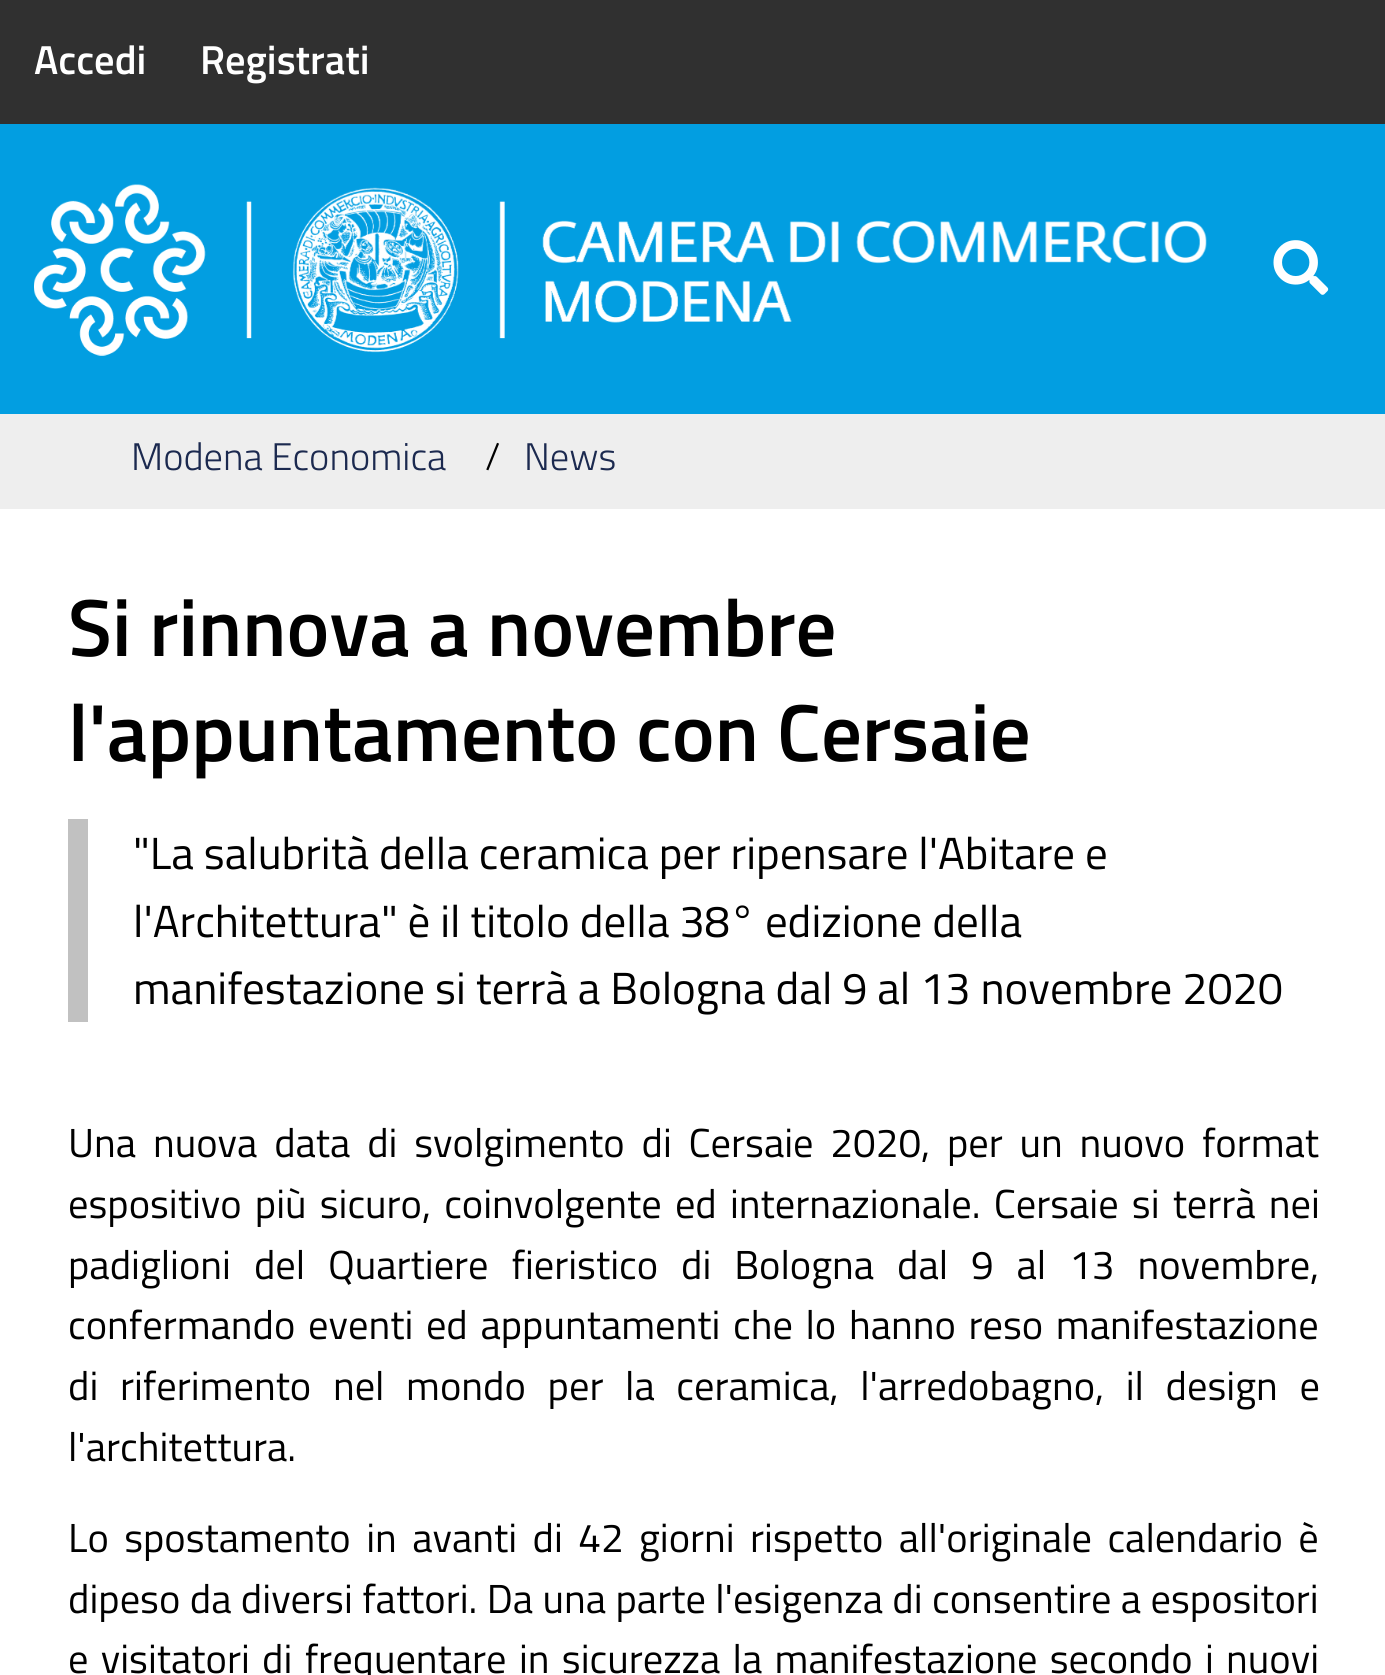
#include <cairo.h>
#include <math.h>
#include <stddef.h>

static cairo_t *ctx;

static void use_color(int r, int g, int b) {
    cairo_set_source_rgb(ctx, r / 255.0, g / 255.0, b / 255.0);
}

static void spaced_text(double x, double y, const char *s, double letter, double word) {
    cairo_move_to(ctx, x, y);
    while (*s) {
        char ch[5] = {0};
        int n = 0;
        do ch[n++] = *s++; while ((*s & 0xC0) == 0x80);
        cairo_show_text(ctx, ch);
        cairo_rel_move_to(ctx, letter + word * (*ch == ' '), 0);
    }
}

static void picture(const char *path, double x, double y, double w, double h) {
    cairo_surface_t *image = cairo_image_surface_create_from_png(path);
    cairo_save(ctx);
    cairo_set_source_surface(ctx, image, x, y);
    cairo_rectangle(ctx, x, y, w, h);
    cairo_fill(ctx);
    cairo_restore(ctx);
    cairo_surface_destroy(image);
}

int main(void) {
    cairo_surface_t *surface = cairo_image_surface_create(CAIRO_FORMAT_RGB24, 1385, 1675);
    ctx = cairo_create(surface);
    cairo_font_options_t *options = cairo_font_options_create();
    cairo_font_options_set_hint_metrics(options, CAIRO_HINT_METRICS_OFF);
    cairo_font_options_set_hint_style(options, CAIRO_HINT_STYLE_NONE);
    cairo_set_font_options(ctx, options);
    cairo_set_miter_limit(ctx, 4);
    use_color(255, 255, 255);
    cairo_paint(ctx);
    use_color(2, 158, 225);
    cairo_rectangle(ctx, 0, 124, 1385, 290);
    cairo_fill(ctx);
    use_color(48, 48, 48);
    cairo_rectangle(ctx, 0, 0, 1385, 124);
    cairo_fill(ctx);
    cairo_select_font_face(ctx, "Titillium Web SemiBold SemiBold", CAIRO_FONT_SLANT_NORMAL, CAIRO_FONT_WEIGHT_NORMAL);
    cairo_set_font_size(ctx, 40.5);
    use_color(255, 255, 255);
    cairo_move_to(ctx, 34, 74);
    cairo_show_text(ctx, "Accedi");
    cairo_move_to(ctx, 200, 74);
    cairo_show_text(ctx, "Registrati");
    picture("img1.png", 34, 184, 1173, 172);
    picture("img2.png", 1273, 240, 56, 55);
    use_color(238, 238, 238);
    cairo_rectangle(ctx, 0, 414, 1385, 95);
    cairo_fill(ctx);
    cairo_select_font_face(ctx, "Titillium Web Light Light", CAIRO_FONT_SLANT_NORMAL, CAIRO_FONT_WEIGHT_NORMAL);
    cairo_set_font_size(ctx, 38.5);
    use_color(27, 41, 79);
    cairo_move_to(ctx, 131, 470);
    cairo_show_text(ctx, "Modena Economica");
    use_color(0, 0, 0);
    cairo_move_to(ctx, 485, 470);
    cairo_show_text(ctx, "/");
    use_color(27, 41, 79);
    cairo_move_to(ctx, 524, 470);
    cairo_show_text(ctx, "News");
    cairo_select_font_face(ctx, "Titillium Web SemiBold SemiBold", CAIRO_FONT_SLANT_NORMAL, CAIRO_FONT_WEIGHT_NORMAL);
    cairo_set_font_size(ctx, 81);
    use_color(0, 0, 0);
    cairo_move_to(ctx, 68, 656);
    cairo_show_text(ctx, "Si rinnova a novembre");
    cairo_move_to(ctx, 68, 761);
    cairo_show_text(ctx, "l'appuntamento con Cersaie");
    use_color(193, 193, 193);
    cairo_rectangle(ctx, 68, 819, 20, 203);
    cairo_fill(ctx);
    cairo_select_font_face(ctx, "Titillium Web", CAIRO_FONT_SLANT_NORMAL, CAIRO_FONT_WEIGHT_NORMAL);
    cairo_set_font_size(ctx, 45);
    use_color(0, 0, 0);
    cairo_move_to(ctx, 133, 869);
    cairo_show_text(ctx, "\"La salubrità della ceramica per ripensare l'Abitare e");
    cairo_move_to(ctx, 133, 937);
    cairo_show_text(ctx, "l'Architettura\" è il titolo della 38° edizione della");
    cairo_move_to(ctx, 133, 1004);
    cairo_show_text(ctx, "manifestazione si terrà a Bologna dal 9 al 13 novembre 2020");
    cairo_set_font_size(ctx, 40.5);
    spaced_text(68, 1157, "Una nuova data di svolgimento di Cersaie 2020, per un nuovo format", 0, 7.9);
    spaced_text(68, 1218, "espositivo più sicuro, coinvolgente ed internazionale. Cersaie si terrà nei", 0, 4.25);
    spaced_text(68, 1279, "padiglioni del Quartiere fieristico di Bologna dal 9 al 13 novembre,", 0, 14);
    spaced_text(68, 1339, "confermando eventi ed appuntamenti che lo hanno reso manifestazione", 0, 3.75);
    spaced_text(68, 1400, "di riferimento nel mondo per la ceramica, l'arredobagno, il design e", 0, 12.75);
    cairo_move_to(ctx, 68, 1461);
    cairo_show_text(ctx, "l'architettura.");
    spaced_text(68, 1552, "Lo spostamento in avanti di 42 giorni rispetto all'originale calendario è", 0, 6.5);
    spaced_text(68, 1613, "dipeso da diversi fattori. Da una parte l'esigenza di consentire a espositori", 0, 0.5);
    spaced_text(68, 1673, "e visitatori di frequentare in sicurezza la manifestazione secondo i nuovi", 0, 3.4);
    cairo_surface_write_to_png(surface, "result.png");
    cairo_font_options_destroy(options);
    cairo_destroy(ctx);
    cairo_surface_destroy(surface);
    return 0;
}
